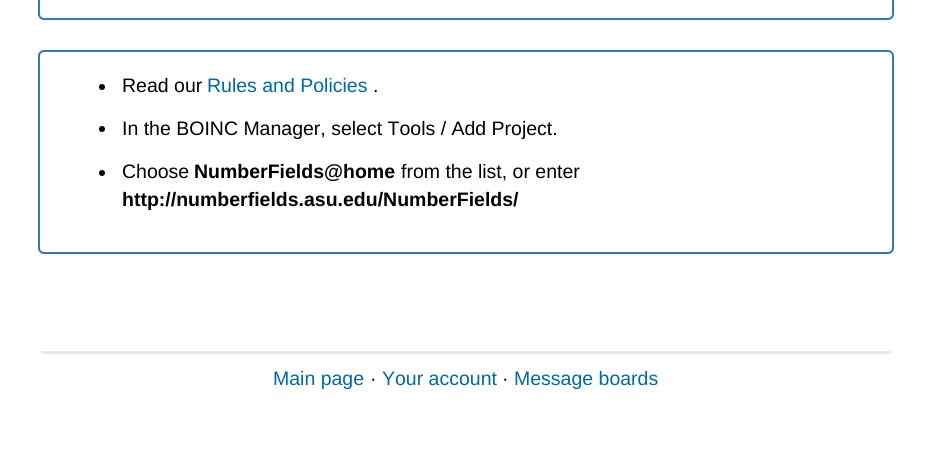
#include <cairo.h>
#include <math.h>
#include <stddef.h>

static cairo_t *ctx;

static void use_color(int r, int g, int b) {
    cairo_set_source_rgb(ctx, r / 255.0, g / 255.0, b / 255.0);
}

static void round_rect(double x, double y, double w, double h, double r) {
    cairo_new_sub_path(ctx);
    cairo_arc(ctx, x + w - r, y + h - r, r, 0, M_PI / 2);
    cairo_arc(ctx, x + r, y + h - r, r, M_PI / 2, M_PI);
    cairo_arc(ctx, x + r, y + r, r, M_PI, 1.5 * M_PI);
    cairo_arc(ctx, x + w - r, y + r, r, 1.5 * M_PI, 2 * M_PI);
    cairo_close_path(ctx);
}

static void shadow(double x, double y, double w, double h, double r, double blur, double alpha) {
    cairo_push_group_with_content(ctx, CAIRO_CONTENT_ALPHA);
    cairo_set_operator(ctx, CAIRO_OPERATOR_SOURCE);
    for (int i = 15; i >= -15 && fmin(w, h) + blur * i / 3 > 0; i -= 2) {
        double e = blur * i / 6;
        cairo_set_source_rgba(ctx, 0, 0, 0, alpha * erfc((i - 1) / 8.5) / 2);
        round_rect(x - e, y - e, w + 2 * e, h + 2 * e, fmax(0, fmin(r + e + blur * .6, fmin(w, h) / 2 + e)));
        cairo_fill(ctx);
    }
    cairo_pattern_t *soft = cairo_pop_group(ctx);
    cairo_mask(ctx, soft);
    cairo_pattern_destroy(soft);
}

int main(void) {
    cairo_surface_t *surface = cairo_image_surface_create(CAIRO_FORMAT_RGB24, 931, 452);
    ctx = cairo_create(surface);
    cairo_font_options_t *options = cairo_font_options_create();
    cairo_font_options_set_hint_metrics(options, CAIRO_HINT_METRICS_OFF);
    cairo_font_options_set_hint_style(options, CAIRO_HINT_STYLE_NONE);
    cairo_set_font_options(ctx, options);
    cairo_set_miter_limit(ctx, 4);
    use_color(255, 255, 255);
    cairo_paint(ctx);
    use_color(0, 0, 0);
    shadow(38, -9, 856, 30, 6, 1, 0.05);
    use_color(255, 255, 255);
    round_rect(39, -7, 854, 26, 5);
    cairo_fill_preserve(ctx);
    use_color(51, 122, 183);
    cairo_stroke(ctx);
    use_color(0, 0, 0);
    shadow(38, 51, 856, 204, 6, 1, 0.05);
    use_color(255, 255, 255);
    round_rect(39, 51, 854, 202, 5);
    cairo_fill_preserve(ctx);
    use_color(51, 122, 183);
    cairo_stroke(ctx);
    use_color(0, 0, 0);
    cairo_arc(ctx, 102, 87, 3, 0, 2 * M_PI);
    cairo_fill(ctx);
    cairo_select_font_face(ctx, "Liberation Sans", CAIRO_FONT_SLANT_NORMAL, CAIRO_FONT_WEIGHT_NORMAL);
    cairo_set_font_size(ctx, 19.5);
    cairo_move_to(ctx, 122, 92);
    cairo_show_text(ctx, "Read our");
    use_color(0, 105, 161);
    cairo_move_to(ctx, 207, 92);
    cairo_show_text(ctx, "Rules and Policies");
    use_color(0, 0, 0);
    cairo_move_to(ctx, 373, 92);
    cairo_show_text(ctx, ".");
    cairo_new_path(ctx);
    cairo_arc(ctx, 102, 129, 3, 0, 2 * M_PI);
    cairo_fill(ctx);
    cairo_move_to(ctx, 122, 135);
    cairo_show_text(ctx, "In the BOINC Manager, select Tools / Add Project.");
    cairo_new_path(ctx);
    cairo_arc(ctx, 102, 173, 3, 0, 2 * M_PI);
    cairo_fill(ctx);
    cairo_move_to(ctx, 122, 178);
    cairo_show_text(ctx, "Choose");
    cairo_select_font_face(ctx, "Liberation Sans", CAIRO_FONT_SLANT_NORMAL, CAIRO_FONT_WEIGHT_BOLD);
    cairo_move_to(ctx, 194, 178);
    cairo_show_text(ctx, "NumberFields@home");
    cairo_select_font_face(ctx, "Liberation Sans", CAIRO_FONT_SLANT_NORMAL, CAIRO_FONT_WEIGHT_NORMAL);
    cairo_move_to(ctx, 401, 178);
    cairo_show_text(ctx, "from the list, or enter");
    cairo_select_font_face(ctx, "Liberation Sans", CAIRO_FONT_SLANT_NORMAL, CAIRO_FONT_WEIGHT_BOLD);
    cairo_move_to(ctx, 122, 206);
    cairo_show_text(ctx, "http://numberfields.asu.edu/NumberFields/");
    use_color(232, 232, 232);
    cairo_rectangle(ctx, 41, 351, 850, 3);
    cairo_fill(ctx);
    cairo_select_font_face(ctx, "Liberation Sans", CAIRO_FONT_SLANT_NORMAL, CAIRO_FONT_WEIGHT_NORMAL);
    use_color(0, 105, 161);
    cairo_move_to(ctx, 273, 385);
    cairo_show_text(ctx, "Main page");
    use_color(0, 0, 0);
    cairo_move_to(ctx, 370, 385);
    cairo_show_text(ctx, "·");
    use_color(0, 105, 161);
    cairo_move_to(ctx, 382, 385);
    cairo_show_text(ctx, "Your account");
    use_color(0, 0, 0);
    cairo_move_to(ctx, 502, 385);
    cairo_show_text(ctx, "·");
    use_color(0, 105, 161);
    cairo_move_to(ctx, 514, 385);
    cairo_show_text(ctx, "Message boards");
    cairo_surface_write_to_png(surface, "result.png");
    cairo_font_options_destroy(options);
    cairo_destroy(ctx);
    cairo_surface_destroy(surface);
    return 0;
}
